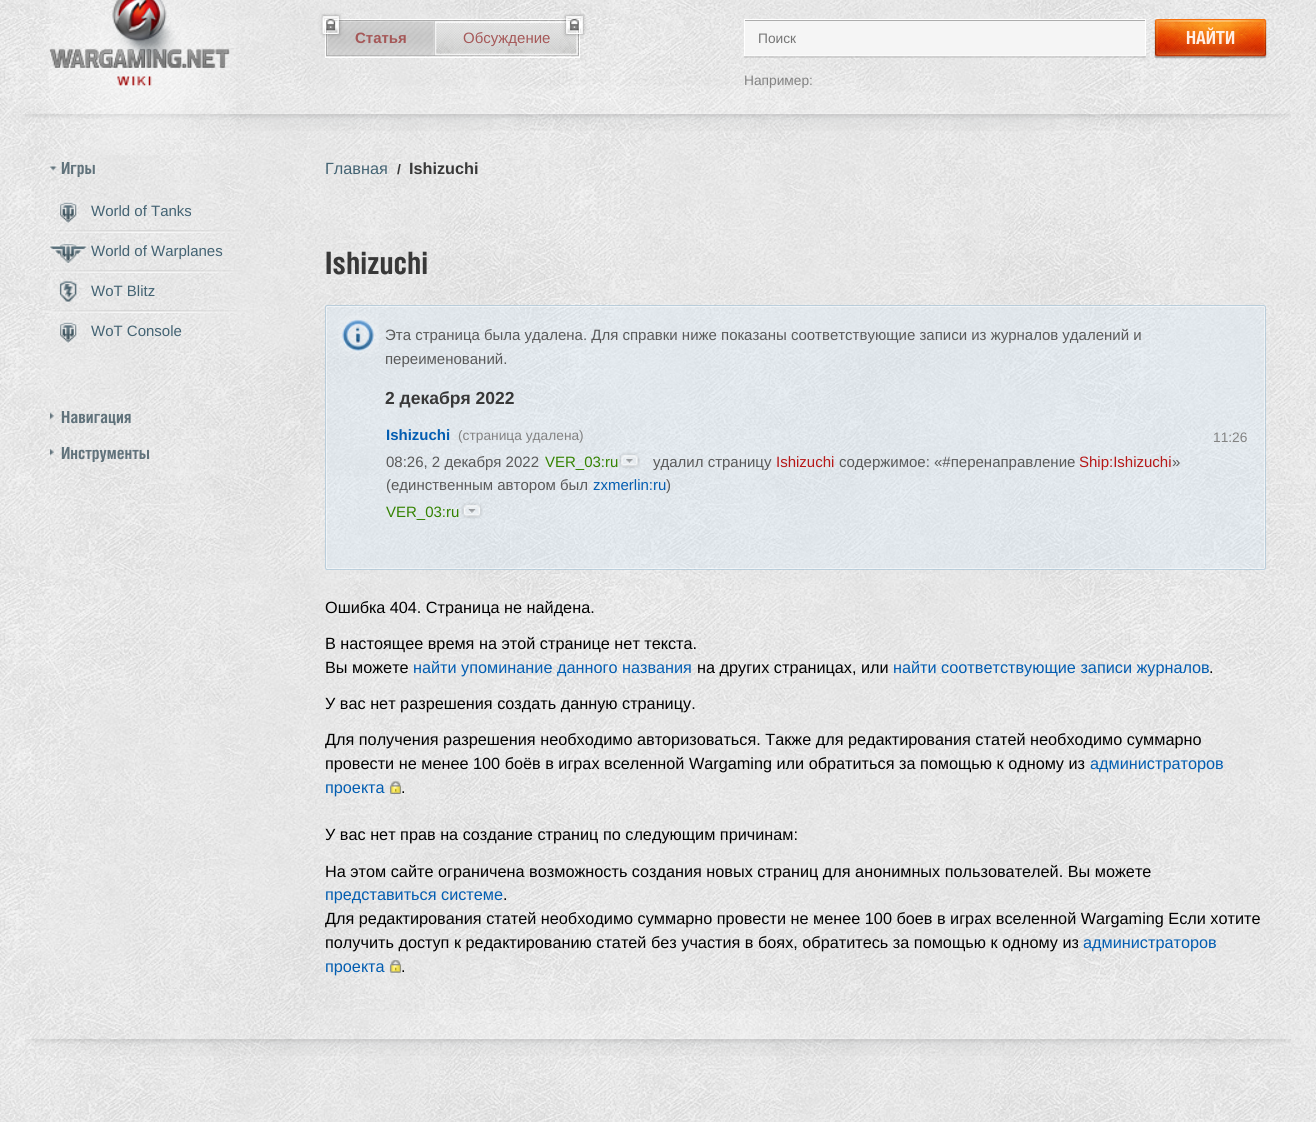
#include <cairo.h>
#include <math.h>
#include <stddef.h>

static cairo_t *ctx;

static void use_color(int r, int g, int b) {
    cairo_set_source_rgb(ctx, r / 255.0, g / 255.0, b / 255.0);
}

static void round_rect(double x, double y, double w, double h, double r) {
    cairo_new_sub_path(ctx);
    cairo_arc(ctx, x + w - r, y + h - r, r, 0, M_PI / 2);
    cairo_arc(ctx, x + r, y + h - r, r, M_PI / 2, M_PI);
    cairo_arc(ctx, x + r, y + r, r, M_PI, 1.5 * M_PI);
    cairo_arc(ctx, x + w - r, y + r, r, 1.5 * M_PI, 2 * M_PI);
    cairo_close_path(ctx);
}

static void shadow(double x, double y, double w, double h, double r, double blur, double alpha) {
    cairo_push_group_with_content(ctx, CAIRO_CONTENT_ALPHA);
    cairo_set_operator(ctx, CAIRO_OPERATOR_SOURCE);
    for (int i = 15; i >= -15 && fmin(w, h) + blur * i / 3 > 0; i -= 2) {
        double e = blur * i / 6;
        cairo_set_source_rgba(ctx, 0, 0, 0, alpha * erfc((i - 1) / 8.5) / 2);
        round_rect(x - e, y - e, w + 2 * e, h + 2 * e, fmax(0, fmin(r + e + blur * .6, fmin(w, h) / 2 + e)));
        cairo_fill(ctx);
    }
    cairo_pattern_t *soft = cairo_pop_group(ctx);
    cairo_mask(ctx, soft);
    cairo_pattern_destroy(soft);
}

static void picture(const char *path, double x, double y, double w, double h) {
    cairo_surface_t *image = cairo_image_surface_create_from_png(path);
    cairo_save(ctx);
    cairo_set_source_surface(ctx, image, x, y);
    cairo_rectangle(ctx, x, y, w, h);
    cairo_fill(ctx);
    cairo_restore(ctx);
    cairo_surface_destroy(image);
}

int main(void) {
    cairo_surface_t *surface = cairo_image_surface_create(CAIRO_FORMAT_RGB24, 1316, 1122);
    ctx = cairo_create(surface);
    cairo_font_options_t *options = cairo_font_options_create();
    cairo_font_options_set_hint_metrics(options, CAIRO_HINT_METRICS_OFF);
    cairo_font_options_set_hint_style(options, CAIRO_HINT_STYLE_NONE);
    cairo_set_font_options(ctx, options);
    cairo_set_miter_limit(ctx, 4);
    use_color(255, 255, 255);
    cairo_paint(ctx);
    picture("img1.png", 0, 0, 1316, 1122);
    picture("img11.png", 25, 86, 830, 45);
    picture("img2.png", 49, 0, 187, 155);
    cairo_rectangle(ctx, 325.5, 19.5, 254, 38);
    use_color(255, 255, 255);
    cairo_set_line_width(ctx, 1);
    cairo_stroke(ctx);
    cairo_rectangle(ctx, 326.5, 20.5, 252, 35);
    cairo_set_source_rgba(ctx, 0, 0, 0, 0.25);
    cairo_stroke(ctx);
    use_color(206, 206, 206);
    cairo_rectangle(ctx, 434, 21, 1, 34);
    cairo_fill(ctx);
    picture("img4.png", 327, 21, 70, 35);
    cairo_save(ctx);
    cairo_set_fill_rule(ctx, CAIRO_FILL_RULE_EVEN_ODD);
    cairo_new_path(ctx);
    cairo_move_to(ctx, 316, 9);
    cairo_line_to(ctx, 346, 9);
    cairo_line_to(ctx, 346, 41);
    cairo_line_to(ctx, 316, 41);
    cairo_close_path(ctx);
    cairo_move_to(ctx, 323, 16);
    cairo_line_to(ctx, 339, 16);
    cairo_line_to(ctx, 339, 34);
    cairo_line_to(ctx, 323, 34);
    cairo_close_path(ctx);
    cairo_clip(ctx);
    use_color(21, 21, 21);
    shadow(323, 16, 16, 18, 0, 2, 0.4);
    cairo_restore(ctx);
    picture("img3.png", 322, 16, 17, 18);
    picture("img5.png", 385, 21, 49, 35);
    cairo_select_font_face(ctx, "Liberation Sans", CAIRO_FONT_SLANT_NORMAL, CAIRO_FONT_WEIGHT_BOLD);
    cairo_set_font_size(ctx, 15);
    use_color(165, 88, 88);
    cairo_move_to(ctx, 355, 43);
    cairo_show_text(ctx, "Статья");
    picture("img6.png", 435, 21, 105, 35);
    picture("img7.png", 524, 21, 54, 35);
    cairo_select_font_face(ctx, "Liberation Sans", CAIRO_FONT_SLANT_NORMAL, CAIRO_FONT_WEIGHT_NORMAL);
    cairo_move_to(ctx, 463, 43);
    cairo_show_text(ctx, "Обсуждение");
    cairo_save(ctx);
    cairo_set_fill_rule(ctx, CAIRO_FILL_RULE_EVEN_ODD);
    cairo_new_path(ctx);
    cairo_move_to(ctx, 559, 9);
    cairo_line_to(ctx, 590, 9);
    cairo_line_to(ctx, 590, 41);
    cairo_line_to(ctx, 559, 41);
    cairo_close_path(ctx);
    cairo_move_to(ctx, 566, 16);
    cairo_line_to(ctx, 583, 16);
    cairo_line_to(ctx, 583, 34);
    cairo_line_to(ctx, 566, 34);
    cairo_close_path(ctx);
    cairo_clip(ctx);
    use_color(21, 21, 21);
    shadow(566, 16, 17, 18, 0, 2, 0.4);
    cairo_restore(ctx);
    picture("img8.png", 566, 16, 17, 18);
    cairo_set_source_rgba(ctx, 0, 0, 0, 0.1);
    cairo_rectangle(ctx, 744, 56, 402, 2);
    cairo_fill(ctx);
    use_color(245, 245, 245);
    cairo_rectangle(ctx, 745, 21, 400, 34);
    cairo_fill(ctx);
    use_color(172, 172, 172);
    cairo_rectangle(ctx, 745, 20, 400, 1);
    cairo_fill(ctx);
    use_color(255, 255, 255);
    cairo_rectangle(ctx, 744, 19, 402, 1);
    cairo_fill(ctx);
    cairo_rectangle(ctx, 1145, 19, 1, 37);
    cairo_fill(ctx);
    use_color(250, 250, 250);
    cairo_rectangle(ctx, 744, 55, 402, 1);
    cairo_fill(ctx);
    use_color(255, 255, 255);
    cairo_rectangle(ctx, 744, 19, 1, 37);
    cairo_fill(ctx);
    cairo_set_font_size(ctx, 13.75);
    use_color(117, 117, 117);
    cairo_move_to(ctx, 758, 43);
    cairo_show_text(ctx, "Поиск");
    use_color(0, 0, 0);
    shadow(1155, 20, 111, 38, 1, 0.5, 0.3);
    picture("img9.png", 1155, 19, 74, 38);
    picture("img10.png", 1207, 19, 60, 38);
    cairo_select_font_face(ctx, "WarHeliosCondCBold", CAIRO_FONT_SLANT_NORMAL, CAIRO_FONT_WEIGHT_BOLD);
    cairo_set_font_size(ctx, 19);
    use_color(255, 239, 230);
    cairo_move_to(ctx, 1186, 44);
    cairo_show_text(ctx, "НАЙТИ");
    cairo_select_font_face(ctx, "Liberation Sans", CAIRO_FONT_SLANT_NORMAL, CAIRO_FONT_WEIGHT_NORMAL);
    cairo_set_font_size(ctx, 13.75);
    use_color(130, 130, 130);
    cairo_move_to(ctx, 744, 85);
    cairo_show_text(ctx, "Например:");
    picture("img12.png", 855, 92, 436, 39);
    picture("img13.png", 50, 166, 7, 5);
    cairo_select_font_face(ctx, "WarHeliosCondCBold", CAIRO_FONT_SLANT_NORMAL, CAIRO_FONT_WEIGHT_BOLD);
    cairo_set_font_size(ctx, 17.5);
    use_color(96, 114, 123);
    cairo_move_to(ctx, 61, 174);
    cairo_show_text(ctx, "Игры");
    picture("img14.png", 59, 201, 19, 23);
    cairo_select_font_face(ctx, "Liberation Sans", CAIRO_FONT_SLANT_NORMAL, CAIRO_FONT_WEIGHT_NORMAL);
    cairo_set_font_size(ctx, 15);
    use_color(67, 99, 115);
    cairo_move_to(ctx, 91, 216);
    cairo_show_text(ctx, "World of Tanks");
    picture("img15.png", 46, 230, 198, 3);
    picture("img16.png", 49, 243, 39, 21);
    cairo_move_to(ctx, 91, 256);
    cairo_show_text(ctx, "World of Warplanes");
    picture("img17.png", 48, 270, 192, 3);
    picture("img18.png", 59, 280, 18, 22);
    cairo_move_to(ctx, 91, 296);
    cairo_show_text(ctx, "WoT Blitz");
    picture("img19.png", 45, 310, 198, 3);
    picture("img20.png", 59, 321, 19, 23);
    cairo_move_to(ctx, 91, 336);
    cairo_show_text(ctx, "WoT Console");
    picture("img21.png", 50, 412, 4, 8);
    cairo_select_font_face(ctx, "WarHeliosCondCBold", CAIRO_FONT_SLANT_NORMAL, CAIRO_FONT_WEIGHT_BOLD);
    cairo_set_font_size(ctx, 17.5);
    use_color(96, 114, 123);
    cairo_move_to(ctx, 61, 423);
    cairo_show_text(ctx, "Навигация");
    picture("img22.png", 50, 448, 4, 8);
    cairo_move_to(ctx, 61, 459);
    cairo_show_text(ctx, "Инструменты");
    cairo_select_font_face(ctx, "Liberation Sans", CAIRO_FONT_SLANT_NORMAL, CAIRO_FONT_WEIGHT_NORMAL);
    cairo_set_font_size(ctx, 16.25);
    use_color(67, 99, 115);
    cairo_move_to(ctx, 325, 174);
    cairo_show_text(ctx, "Главная");
    cairo_select_font_face(ctx, "Liberation Sans", CAIRO_FONT_SLANT_NORMAL, CAIRO_FONT_WEIGHT_BOLD);
    cairo_set_font_size(ctx, 13.75);
    use_color(56, 56, 56);
    cairo_move_to(ctx, 397, 174);
    cairo_show_text(ctx, "/");
    cairo_set_font_size(ctx, 16.25);
    cairo_move_to(ctx, 409, 174);
    cairo_show_text(ctx, "Ishizuchi");
    cairo_select_font_face(ctx, "WarHeliosCondCBold", CAIRO_FONT_SLANT_NORMAL, CAIRO_FONT_WEIGHT_BOLD);
    cairo_set_font_size(ctx, 32.5);
    cairo_move_to(ctx, 325, 274);
    cairo_show_text(ctx, "Ishizuchi");
    cairo_set_source_rgba(ctx, 0.843, 0.91, 0.965, 0.35);
    cairo_rectangle(ctx, 325, 305, 941, 265);
    cairo_fill(ctx);
    round_rect(326.5, 306.5, 938, 262, 0.5);
    cairo_set_source_rgba(ctx, 1, 1, 1, 0.5);
    cairo_stroke(ctx);
    round_rect(325.5, 305.5, 940, 264, 2);
    cairo_set_source_rgba(ctx, 0.475, 0.643, 0.745, 0.37);
    cairo_stroke(ctx);
    picture("img23.png", 338, 313, 41, 43);
    cairo_select_font_face(ctx, "Liberation Sans", CAIRO_FONT_SLANT_NORMAL, CAIRO_FONT_WEIGHT_NORMAL);
    cairo_set_font_size(ctx, 15);
    use_color(89, 89, 89);
    cairo_move_to(ctx, 385, 340);
    cairo_show_text(ctx, "Эта страница была удалена. Для справки ниже показаны соответствующие записи из журналов удалений и");
    cairo_move_to(ctx, 385, 364);
    cairo_show_text(ctx, "переименований.");
    cairo_select_font_face(ctx, "Liberation Sans", CAIRO_FONT_SLANT_NORMAL, CAIRO_FONT_WEIGHT_BOLD);
    cairo_set_font_size(ctx, 17.5);
    use_color(56, 56, 56);
    cairo_move_to(ctx, 385, 404);
    cairo_show_text(ctx, "2 декабря 2022");
    cairo_set_font_size(ctx, 15);
    use_color(2, 93, 177);
    cairo_move_to(ctx, 386, 440);
    cairo_show_text(ctx, "Ishizuchi");
    cairo_select_font_face(ctx, "Liberation Sans", CAIRO_FONT_SLANT_NORMAL, CAIRO_FONT_WEIGHT_NORMAL);
    cairo_set_font_size(ctx, 13.75);
    use_color(130, 130, 130);
    cairo_move_to(ctx, 458, 440);
    cairo_show_text(ctx, "(страница удалена)");
    cairo_move_to(ctx, 1213, 442);
    cairo_show_text(ctx, "11:26");
    cairo_set_font_size(ctx, 15);
    use_color(89, 89, 89);
    cairo_move_to(ctx, 386, 467);
    cairo_show_text(ctx, "08:26, 2 декабря 2022");
    use_color(51, 130, 0);
    cairo_move_to(ctx, 545, 467);
    cairo_show_text(ctx, "VER_03:ru");
    picture("img24.png", 619, 452, 21, 17);
    use_color(89, 89, 89);
    cairo_move_to(ctx, 653, 467);
    cairo_show_text(ctx, "удалил страницу");
    use_color(182, 24, 24);
    cairo_move_to(ctx, 776, 467);
    cairo_show_text(ctx, "Ishizuchi");
    use_color(89, 89, 89);
    cairo_move_to(ctx, 839, 467);
    cairo_show_text(ctx, "содержимое: «#перенаправление");
    use_color(182, 24, 24);
    cairo_move_to(ctx, 1079, 467);
    cairo_show_text(ctx, "Ship:Ishizuchi");
    use_color(89, 89, 89);
    cairo_move_to(ctx, 1172, 467);
    cairo_show_text(ctx, "»");
    cairo_move_to(ctx, 386, 490);
    cairo_show_text(ctx, "(единственным автором был");
    use_color(2, 93, 177);
    cairo_move_to(ctx, 593, 490);
    cairo_show_text(ctx, "zxmerlin:ru");
    use_color(89, 89, 89);
    cairo_move_to(ctx, 666, 490);
    cairo_show_text(ctx, ")");
    use_color(51, 130, 0);
    cairo_move_to(ctx, 386, 517);
    cairo_show_text(ctx, "VER_03:ru");
    picture("img25.png", 461, 502, 22, 17);
    cairo_set_font_size(ctx, 16.25);
    use_color(0, 0, 0);
    cairo_move_to(ctx, 325, 613);
    cairo_show_text(ctx, "Ошибка 404. Страница не найдена.");
    cairo_move_to(ctx, 325, 649);
    cairo_show_text(ctx, "В настоящее время на этой странице нет текста.");
    cairo_move_to(ctx, 325, 673);
    cairo_show_text(ctx, "Вы можете");
    use_color(2, 93, 177);
    cairo_move_to(ctx, 413, 673);
    cairo_show_text(ctx, "найти упоминание данного названия");
    use_color(0, 0, 0);
    cairo_move_to(ctx, 697, 673);
    cairo_show_text(ctx, "на других страницах, или");
    use_color(2, 93, 177);
    cairo_move_to(ctx, 893, 673);
    cairo_show_text(ctx, "найти соответствующие записи журналов");
    use_color(0, 0, 0);
    cairo_move_to(ctx, 1209, 673);
    cairo_show_text(ctx, ".");
    cairo_move_to(ctx, 325, 709);
    cairo_show_text(ctx, "У вас нет разрешения создать данную страницу.");
    cairo_move_to(ctx, 325, 745);
    cairo_show_text(ctx, "Для получения разрешения необходимо авторизоваться. Также для редактирования статей необходимо суммарно");
    cairo_move_to(ctx, 325, 769);
    cairo_show_text(ctx, "провести не менее 100 боёв в играх вселенной Wargaming или обратиться за помощью к одному из");
    use_color(2, 93, 177);
    cairo_move_to(ctx, 1090, 769);
    cairo_show_text(ctx, "администраторов");
    cairo_move_to(ctx, 325, 793);
    cairo_show_text(ctx, "проекта");
    picture("img26.png", 389, 781, 12, 13);
    use_color(0, 0, 0);
    cairo_move_to(ctx, 401, 793);
    cairo_show_text(ctx, ".");
    cairo_move_to(ctx, 325, 840);
    cairo_show_text(ctx, "У вас нет прав на создание страниц по следующим причинам:");
    cairo_move_to(ctx, 325, 877);
    cairo_show_text(ctx, "На этом сайте ограничена возможность создания новых страниц для анонимных пользователей. Вы можете");
    use_color(2, 93, 177);
    cairo_move_to(ctx, 325, 900);
    cairo_show_text(ctx, "представиться системе");
    use_color(0, 0, 0);
    cairo_move_to(ctx, 503, 900);
    cairo_show_text(ctx, ".");
    cairo_move_to(ctx, 325, 924);
    cairo_show_text(ctx, "Для редактирования статей необходимо суммарно провести не менее 100 боев в играх вселенной Wargaming Если хотите");
    cairo_move_to(ctx, 325, 948);
    cairo_show_text(ctx, "получить доступ к редактированию статей без участия в боях, обратитесь за помощью к одному из");
    use_color(2, 93, 177);
    cairo_move_to(ctx, 1083, 948);
    cairo_show_text(ctx, "администраторов");
    cairo_move_to(ctx, 325, 972);
    cairo_show_text(ctx, "проекта");
    picture("img27.png", 389, 960, 12, 13);
    use_color(0, 0, 0);
    cairo_move_to(ctx, 401, 972);
    cairo_show_text(ctx, ".");
    picture("img28.png", 25, 1011, 830, 45);
    picture("img29.png", 855, 1013, 436, 43);
    picture("img30.png", 554, 1120, 1, 2);
    picture("img31.png", 825, 1120, 1, 2);
    cairo_surface_write_to_png(surface, "result.png");
    cairo_font_options_destroy(options);
    cairo_destroy(ctx);
    cairo_surface_destroy(surface);
    return 0;
}
